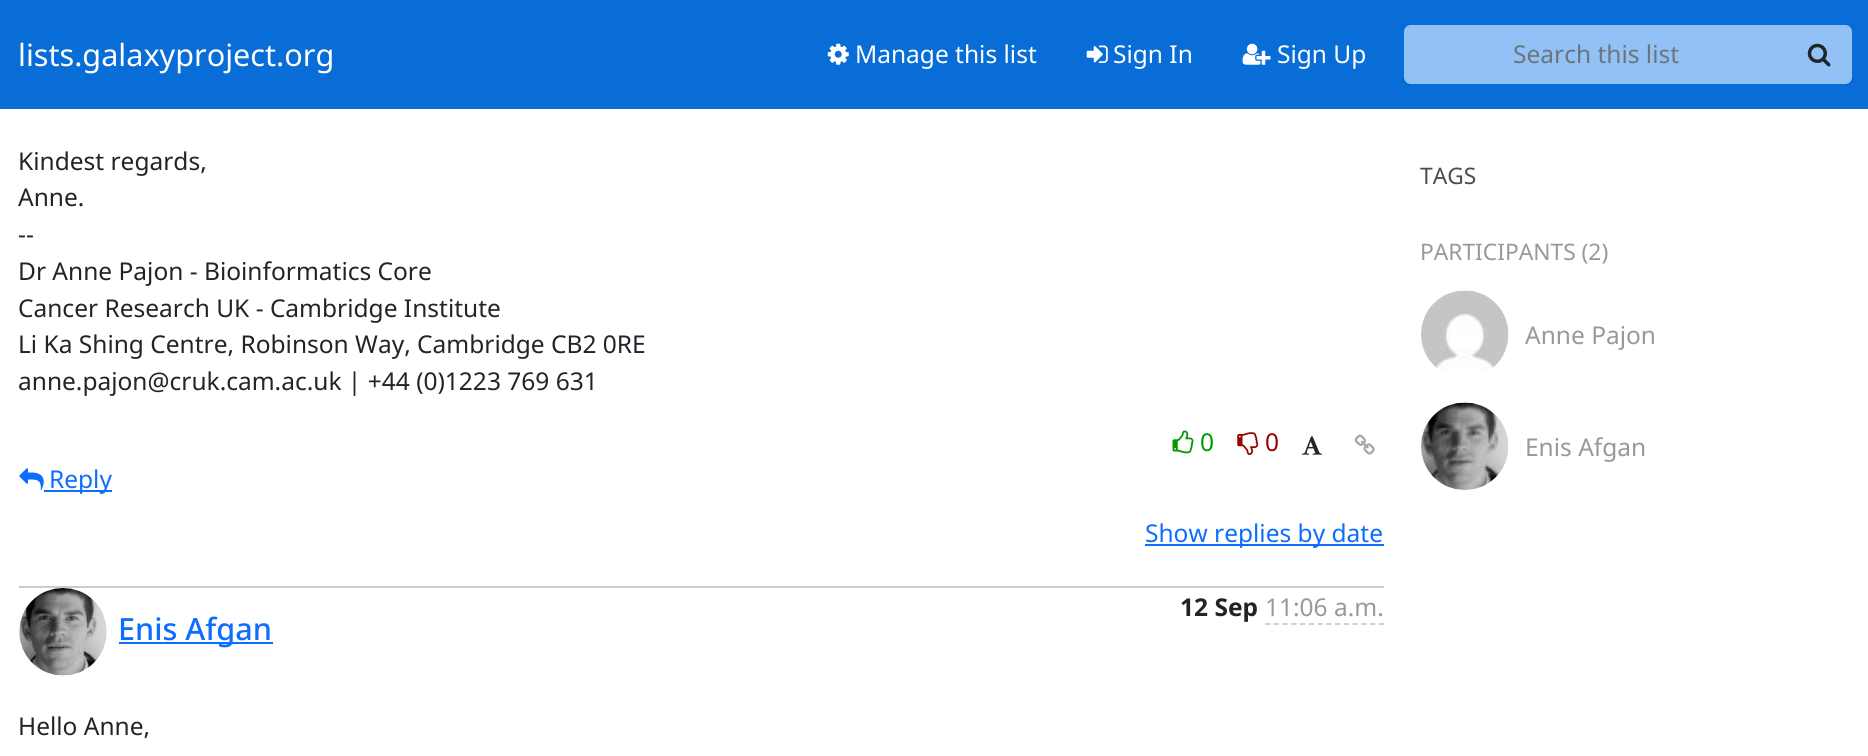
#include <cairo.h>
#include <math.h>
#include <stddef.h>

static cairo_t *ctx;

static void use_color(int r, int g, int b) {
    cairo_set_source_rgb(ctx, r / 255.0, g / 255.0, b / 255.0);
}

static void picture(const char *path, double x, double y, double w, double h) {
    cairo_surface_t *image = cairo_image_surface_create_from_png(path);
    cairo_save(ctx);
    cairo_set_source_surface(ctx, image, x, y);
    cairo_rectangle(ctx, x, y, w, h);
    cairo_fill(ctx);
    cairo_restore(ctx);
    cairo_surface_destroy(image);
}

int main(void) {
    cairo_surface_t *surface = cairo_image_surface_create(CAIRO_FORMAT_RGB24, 1868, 756);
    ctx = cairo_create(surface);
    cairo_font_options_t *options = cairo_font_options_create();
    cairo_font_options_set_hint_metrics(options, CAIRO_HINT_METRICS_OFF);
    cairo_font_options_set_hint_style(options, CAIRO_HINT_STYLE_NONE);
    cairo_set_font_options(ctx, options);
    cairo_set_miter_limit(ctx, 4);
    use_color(255, 255, 255);
    cairo_paint(ctx);
    use_color(8, 109, 215);
    cairo_rectangle(ctx, 0, 0, 1868, 109);
    cairo_fill(ctx);
    cairo_select_font_face(ctx, "Noto Sans", CAIRO_FONT_SLANT_NORMAL, CAIRO_FONT_WEIGHT_NORMAL);
    cairo_set_font_size(ctx, 30.6);
    use_color(255, 255, 255);
    cairo_move_to(ctx, 18, 66);
    cairo_show_text(ctx, "lists.galaxyproject.org");
    picture("img1.png", 827, 43, 22, 22);
    cairo_set_font_size(ctx, 24.5);
    cairo_move_to(ctx, 855, 63);
    cairo_show_text(ctx, "Manage this list");
    picture("img2.png", 1086, 45, 22, 18);
    cairo_move_to(ctx, 1113, 63);
    cairo_show_text(ctx, "Sign In");
    picture("img3.png", 1242, 43, 29, 22);
    cairo_move_to(ctx, 1277, 63);
    cairo_show_text(ctx, "Sign Up");
    use_color(146, 194, 245);
    cairo_new_path(ctx);
    cairo_move_to(ctx, 1411, 25);
    cairo_line_to(ctx, 1790, 25);
    cairo_line_to(ctx, 1790, 84);
    cairo_line_to(ctx, 1411, 84);
    cairo_curve_to(ctx, 1407, 84, 1404, 81, 1404, 77);
    cairo_line_to(ctx, 1404, 32);
    cairo_curve_to(ctx, 1404, 28, 1407, 25, 1411, 25);
    cairo_close_path(ctx);
    cairo_fill(ctx);
    use_color(108, 117, 125);
    cairo_move_to(ctx, 1513, 63);
    cairo_show_text(ctx, "Search this list");
    use_color(146, 194, 245);
    cairo_new_path(ctx);
    cairo_move_to(ctx, 1789, 25);
    cairo_line_to(ctx, 1845, 25);
    cairo_curve_to(ctx, 1849, 25, 1852, 28, 1852, 32);
    cairo_line_to(ctx, 1852, 77);
    cairo_curve_to(ctx, 1852, 81, 1849, 84, 1845, 84);
    cairo_line_to(ctx, 1789, 84);
    cairo_close_path(ctx);
    cairo_fill(ctx);
    picture("img4.png", 1807, 43, 24, 24);
    use_color(33, 37, 41);
    cairo_move_to(ctx, 18, 170);
    cairo_show_text(ctx, "Kindest regards,");
    cairo_move_to(ctx, 18, 206);
    cairo_show_text(ctx, "Anne.");
    cairo_move_to(ctx, 18, 243);
    cairo_show_text(ctx, "--");
    cairo_move_to(ctx, 18, 280);
    cairo_show_text(ctx, "Dr Anne Pajon - Bioinformatics Core");
    cairo_move_to(ctx, 18, 317);
    cairo_show_text(ctx, "Cancer Research UK - Cambridge Institute");
    cairo_move_to(ctx, 18, 353);
    cairo_show_text(ctx, "Li Ka Shing Centre, Robinson Way, Cambridge CB2 0RE");
    cairo_move_to(ctx, 18, 390);
    cairo_show_text(ctx, "anne.pajon@cruk.cam.ac.uk | +44 (0)1223 769 631");
    picture("img5.png", 1172, 430, 22, 24);
    use_color(0, 153, 0);
    cairo_move_to(ctx, 1200, 451);
    cairo_show_text(ctx, "0");
    picture("img6.png", 1237, 432, 22, 23);
    use_color(153, 0, 0);
    cairo_move_to(ctx, 1265, 451);
    cairo_show_text(ctx, "0");
    picture("img7.png", 1302, 436, 20, 19);
    picture("img8.png", 1354, 434, 21, 21);
    picture("img9.png", 19, 468, 25, 22);
    use_color(13, 110, 253);
    cairo_rectangle(ctx, 44, 490, 68, 2);
    cairo_fill(ctx);
    cairo_move_to(ctx, 49, 488);
    cairo_show_text(ctx, "Reply");
    cairo_rectangle(ctx, 1145, 544, 239, 2);
    cairo_fill(ctx);
    cairo_move_to(ctx, 1145, 542);
    cairo_show_text(ctx, "Show replies by date");
    use_color(204, 204, 204);
    cairo_rectangle(ctx, 19, 586, 1365, 2);
    cairo_fill(ctx);
    cairo_select_font_face(ctx, "Noto Sans", CAIRO_FONT_SLANT_NORMAL, CAIRO_FONT_WEIGHT_BOLD);
    use_color(33, 37, 41);
    cairo_move_to(ctx, 1180, 616);
    cairo_show_text(ctx, "12 Sep");
    cairo_select_font_face(ctx, "Noto Sans", CAIRO_FONT_SLANT_NORMAL, CAIRO_FONT_WEIGHT_NORMAL);
    use_color(153, 153, 153);
    cairo_move_to(ctx, 1265, 616);
    cairo_show_text(ctx, "11:06 a.m.");
    cairo_new_path(ctx);
    cairo_move_to(ctx, 1265, 624);
    cairo_line_to(ctx, 1384, 624);
    use_color(204, 204, 204);
    cairo_set_line_width(ctx, 1.8);
    cairo_set_dash(ctx, (double[]){5.25, 3.5}, 2, 0);
    cairo_stroke(ctx);
    picture("img10.png", 19, 588, 88, 88);
    use_color(13, 110, 253);
    cairo_rectangle(ctx, 119, 642, 154, 2);
    cairo_fill(ctx);
    cairo_select_font_face(ctx, "Noto Sans Medium", CAIRO_FONT_SLANT_NORMAL, CAIRO_FONT_WEIGHT_NORMAL);
    cairo_set_font_size(ctx, 30.6);
    cairo_move_to(ctx, 118, 640);
    cairo_show_text(ctx, "Enis Afgan");
    cairo_select_font_face(ctx, "Noto Sans", CAIRO_FONT_SLANT_NORMAL, CAIRO_FONT_WEIGHT_NORMAL);
    cairo_set_font_size(ctx, 24.5);
    use_color(33, 37, 41);
    cairo_move_to(ctx, 18, 735);
    cairo_show_text(ctx, "Hello Anne,");
    cairo_set_font_size(ctx, 22.75);
    use_color(77, 77, 77);
    cairo_move_to(ctx, 1420, 184);
    cairo_show_text(ctx, "TAGS");
    use_color(153, 153, 153);
    cairo_move_to(ctx, 1420, 260);
    cairo_show_text(ctx, "PARTICIPANTS (2)");
    picture("img11.png", 1421, 290, 88, 82);
    cairo_set_font_size(ctx, 24.5);
    cairo_move_to(ctx, 1525, 344);
    cairo_show_text(ctx, "Anne Pajon");
    picture("img12.png", 1421, 402, 88, 88);
    cairo_move_to(ctx, 1525, 456);
    cairo_show_text(ctx, "Enis Afgan");
    cairo_surface_write_to_png(surface, "result.png");
    cairo_font_options_destroy(options);
    cairo_destroy(ctx);
    cairo_surface_destroy(surface);
    return 0;
}
